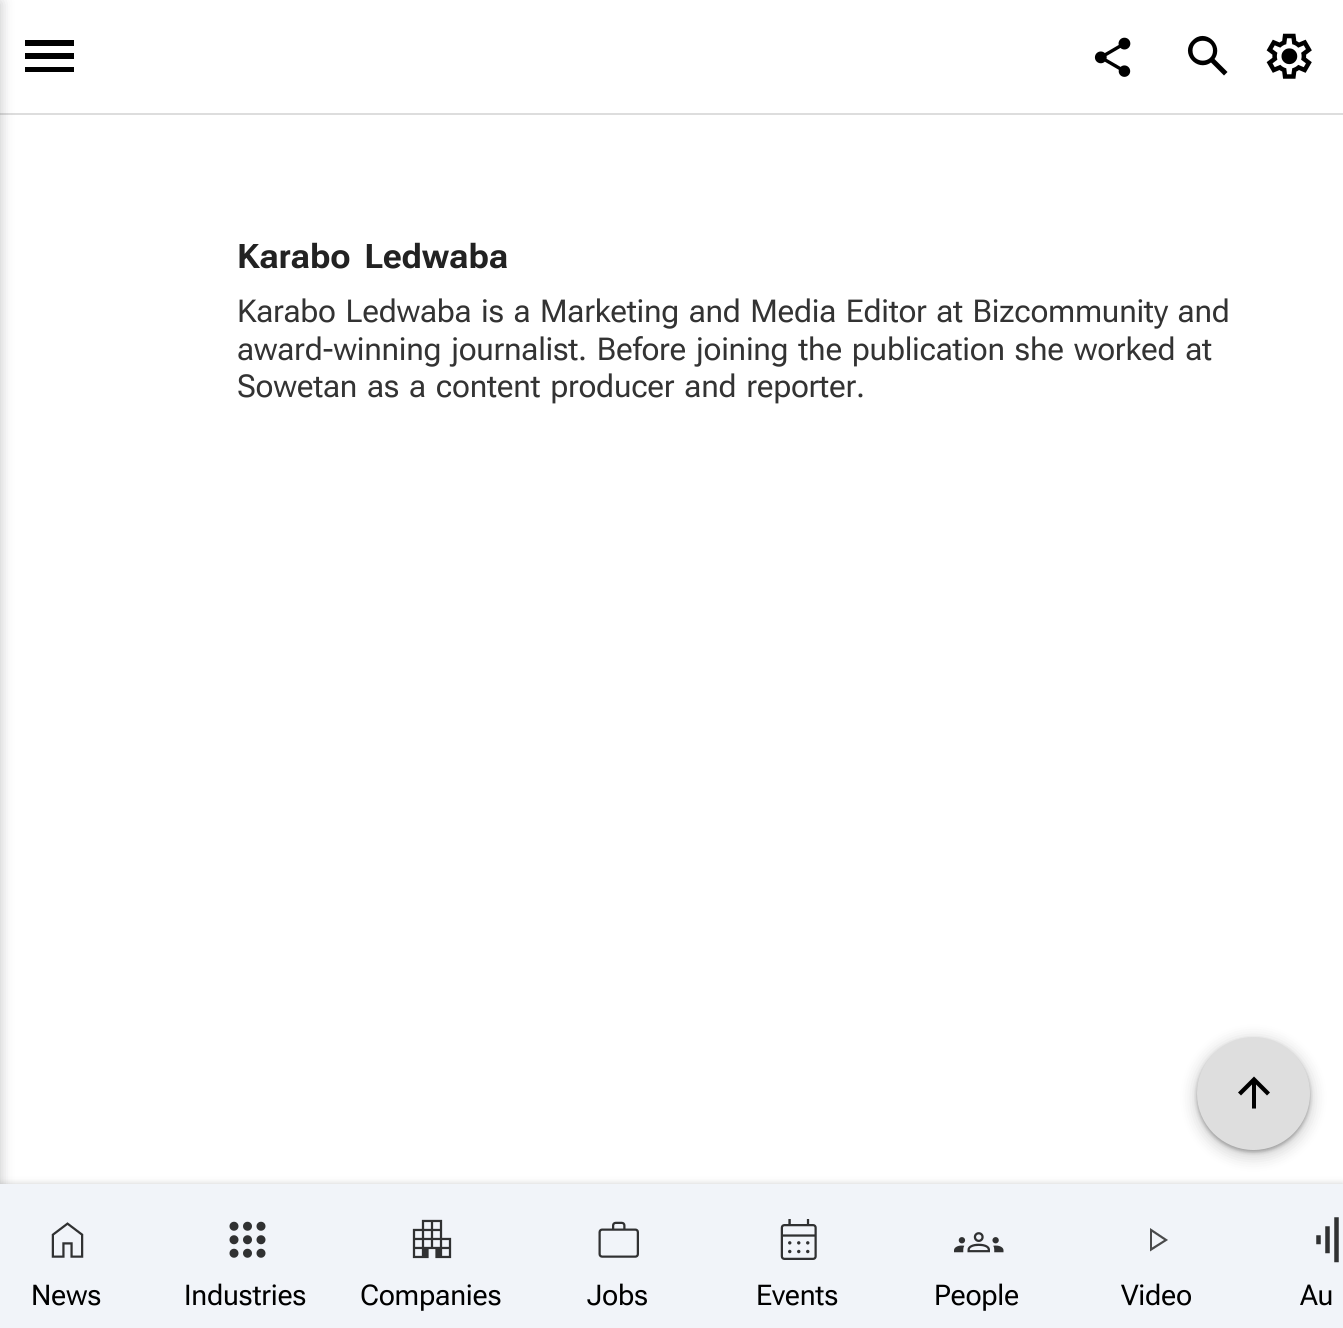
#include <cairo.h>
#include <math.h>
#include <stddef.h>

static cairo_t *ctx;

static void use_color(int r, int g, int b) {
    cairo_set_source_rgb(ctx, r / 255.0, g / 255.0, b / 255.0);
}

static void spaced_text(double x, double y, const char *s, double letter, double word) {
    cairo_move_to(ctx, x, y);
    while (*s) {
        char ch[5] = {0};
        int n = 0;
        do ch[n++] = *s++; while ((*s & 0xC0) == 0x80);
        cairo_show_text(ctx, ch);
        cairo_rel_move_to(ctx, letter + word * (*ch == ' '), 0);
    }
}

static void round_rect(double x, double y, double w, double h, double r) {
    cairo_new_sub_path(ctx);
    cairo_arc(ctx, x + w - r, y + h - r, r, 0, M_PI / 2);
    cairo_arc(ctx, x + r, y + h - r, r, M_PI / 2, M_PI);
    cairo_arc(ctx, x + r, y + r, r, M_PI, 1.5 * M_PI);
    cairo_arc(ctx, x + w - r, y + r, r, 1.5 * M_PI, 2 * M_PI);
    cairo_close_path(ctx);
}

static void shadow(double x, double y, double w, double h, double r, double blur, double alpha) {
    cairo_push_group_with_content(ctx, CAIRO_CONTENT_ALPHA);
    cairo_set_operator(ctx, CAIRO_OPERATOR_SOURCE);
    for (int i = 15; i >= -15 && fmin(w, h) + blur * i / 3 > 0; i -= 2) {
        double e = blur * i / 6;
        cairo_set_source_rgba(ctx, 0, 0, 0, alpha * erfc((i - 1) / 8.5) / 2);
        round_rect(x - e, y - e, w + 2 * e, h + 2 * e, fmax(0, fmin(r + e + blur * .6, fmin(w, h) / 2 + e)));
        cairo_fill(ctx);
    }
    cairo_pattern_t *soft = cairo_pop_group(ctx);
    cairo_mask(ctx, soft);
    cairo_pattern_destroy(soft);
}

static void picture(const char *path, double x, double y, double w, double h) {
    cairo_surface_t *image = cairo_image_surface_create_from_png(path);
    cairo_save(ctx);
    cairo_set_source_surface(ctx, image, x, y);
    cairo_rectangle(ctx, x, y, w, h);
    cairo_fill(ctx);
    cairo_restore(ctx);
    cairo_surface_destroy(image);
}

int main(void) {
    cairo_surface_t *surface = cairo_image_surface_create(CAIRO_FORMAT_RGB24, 1343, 1328);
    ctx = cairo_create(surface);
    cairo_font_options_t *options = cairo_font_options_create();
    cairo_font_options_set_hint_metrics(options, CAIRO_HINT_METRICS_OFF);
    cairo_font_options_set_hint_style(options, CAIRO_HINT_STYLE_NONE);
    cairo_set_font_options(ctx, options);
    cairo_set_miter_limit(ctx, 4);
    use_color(255, 255, 255);
    cairo_paint(ctx);
    use_color(221, 221, 221);
    cairo_rectangle(ctx, 0, 113, 1343, 2);
    cairo_fill(ctx);
    use_color(32, 33, 36);
    shadow(-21, 2, 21, 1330, 0, 7, 0.28);
    use_color(0, 0, 0);
    cairo_new_path(ctx);
    cairo_move_to(ctx, 25, 72);
    cairo_line_to(ctx, 25, 67);
    cairo_line_to(ctx, 74, 67);
    cairo_line_to(ctx, 74, 72);
    cairo_close_path(ctx);
    cairo_move_to(ctx, 25, 59);
    cairo_line_to(ctx, 25, 53);
    cairo_line_to(ctx, 74, 53);
    cairo_line_to(ctx, 74, 59);
    cairo_close_path(ctx);
    cairo_move_to(ctx, 25, 46);
    cairo_line_to(ctx, 25, 40);
    cairo_line_to(ctx, 74, 40);
    cairo_line_to(ctx, 74, 46);
    cairo_close_path(ctx);
    cairo_fill(ctx);
    picture("img1.png", 1094, 37, 37, 40);
    cairo_new_path(ctx);
    cairo_move_to(ctx, 1227.5, 72);
    cairo_line_to(ctx, 1214.5, 59);
    cairo_curve_to(ctx, 1224.5, 45, 1205, 27.5, 1192.5, 40.5);
    cairo_curve_to(ctx, 1179.5, 53, 1197, 72.5, 1211, 62.5);
    cairo_line_to(ctx, 1224, 75.5);
    cairo_close_path(ctx);
    cairo_move_to(ctx, 1192.5, 50.5);
    cairo_curve_to(ctx, 1192.5, 37.5, 1213, 37.5, 1213, 50.5);
    cairo_curve_to(ctx, 1213, 64, 1192.5, 64, 1192.5, 50.5);
    cairo_close_path(ctx);
    cairo_fill(ctx);
    picture("img2.png", 1266, 33, 46, 46);
    cairo_select_font_face(ctx, "Roboto Flex", CAIRO_FONT_SLANT_NORMAL, CAIRO_FONT_WEIGHT_BOLD);
    cairo_set_font_size(ctx, 33.75);
    use_color(34, 34, 34);
    spaced_text(237, 268, "Karabo Ledwaba", -0.23, 6);
    cairo_select_font_face(ctx, "Roboto Flex", CAIRO_FONT_SLANT_NORMAL, CAIRO_FONT_WEIGHT_NORMAL);
    cairo_set_font_size(ctx, 31.5);
    use_color(51, 51, 51);
    spaced_text(237, 322, "Karabo Ledwaba is a Marketing and Media Editor at Bizcommunity and", -0.23, 2.25);
    spaced_text(237, 360, "award-winning journalist. Before joining the publication she worked at", -0.23, 2.5);
    spaced_text(237, 397, "Sowetan as a content producer and reporter.", -0.23, 2.5);
    use_color(0, 0, 0);
    shadow(1197, 1040, 113, 112, 56, 2, 0.3);
    shadow(1193, 1037, 121, 122, 60.5, 7, 0.15);
    use_color(222, 222, 222);
    cairo_arc(ctx, 1253.5, 1093.5, 56.5, 0, 2 * M_PI);
    cairo_fill(ctx);
    use_color(0, 0, 0);
    cairo_new_path(ctx);
    cairo_move_to(ctx, 1252, 1084.5);
    cairo_line_to(ctx, 1241, 1095.5);
    cairo_line_to(ctx, 1238, 1092.5);
    cairo_line_to(ctx, 1254, 1076.5);
    cairo_line_to(ctx, 1270, 1092.5);
    cairo_line_to(ctx, 1267, 1095.5);
    cairo_line_to(ctx, 1256, 1084.5);
    cairo_line_to(ctx, 1256, 1108.5);
    cairo_line_to(ctx, 1252, 1108.5);
    cairo_close_path(ctx);
    cairo_fill(ctx);
    use_color(0, 0, 0);
    shadow(0, 1184, 1343, 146, 0, 3.5, 0.2);
    use_color(241, 244, 249);
    cairo_rectangle(ctx, 0, 1184, 1343, 144);
    cairo_fill(ctx);
    picture("img3.png", 51, 1222, 33, 36);
    cairo_set_font_size(ctx, 28.5);
    use_color(0, 0, 0);
    spaced_text(31, 1305, "News", -0.23, 0);
    picture("img4.png", 229, 1221, 37, 37);
    spaced_text(184, 1305, "Industries", -0.23, 0);
    picture("img5.png", 412, 1219, 40, 40);
    spaced_text(360, 1305, "Companies", -0.23, 0);
    picture("img6.png", 598, 1221, 41, 37);
    spaced_text(587, 1305, "Jobs", -0.23, 0);
    picture("img7.png", 780, 1219, 37, 41);
    spaced_text(756, 1305, "Events", -0.23, 0);
    picture("img8.png", 954, 1232, 50, 21);
    spaced_text(934, 1305, "People", -0.23, 0);
    use_color(73, 74, 75);
    cairo_new_path(ctx);
    cairo_move_to(ctx, 1150, 1251.5);
    cairo_line_to(ctx, 1150, 1228);
    cairo_line_to(ctx, 1168, 1240);
    cairo_close_path(ctx);
    cairo_move_to(ctx, 1152, 1240);
    cairo_close_path(ctx);
    cairo_move_to(ctx, 1152, 1247.5);
    cairo_line_to(ctx, 1164, 1240);
    cairo_line_to(ctx, 1152, 1232);
    cairo_close_path(ctx);
    cairo_fill(ctx);
    use_color(0, 0, 0);
    spaced_text(1121, 1305, "Video", -0.23, 0);
    picture("img9.png", 1316, 1217, 23, 46);
    spaced_text(1300, 1305, "Au", -0.23, 0);
    cairo_surface_write_to_png(surface, "result.png");
    cairo_font_options_destroy(options);
    cairo_destroy(ctx);
    cairo_surface_destroy(surface);
    return 0;
}
